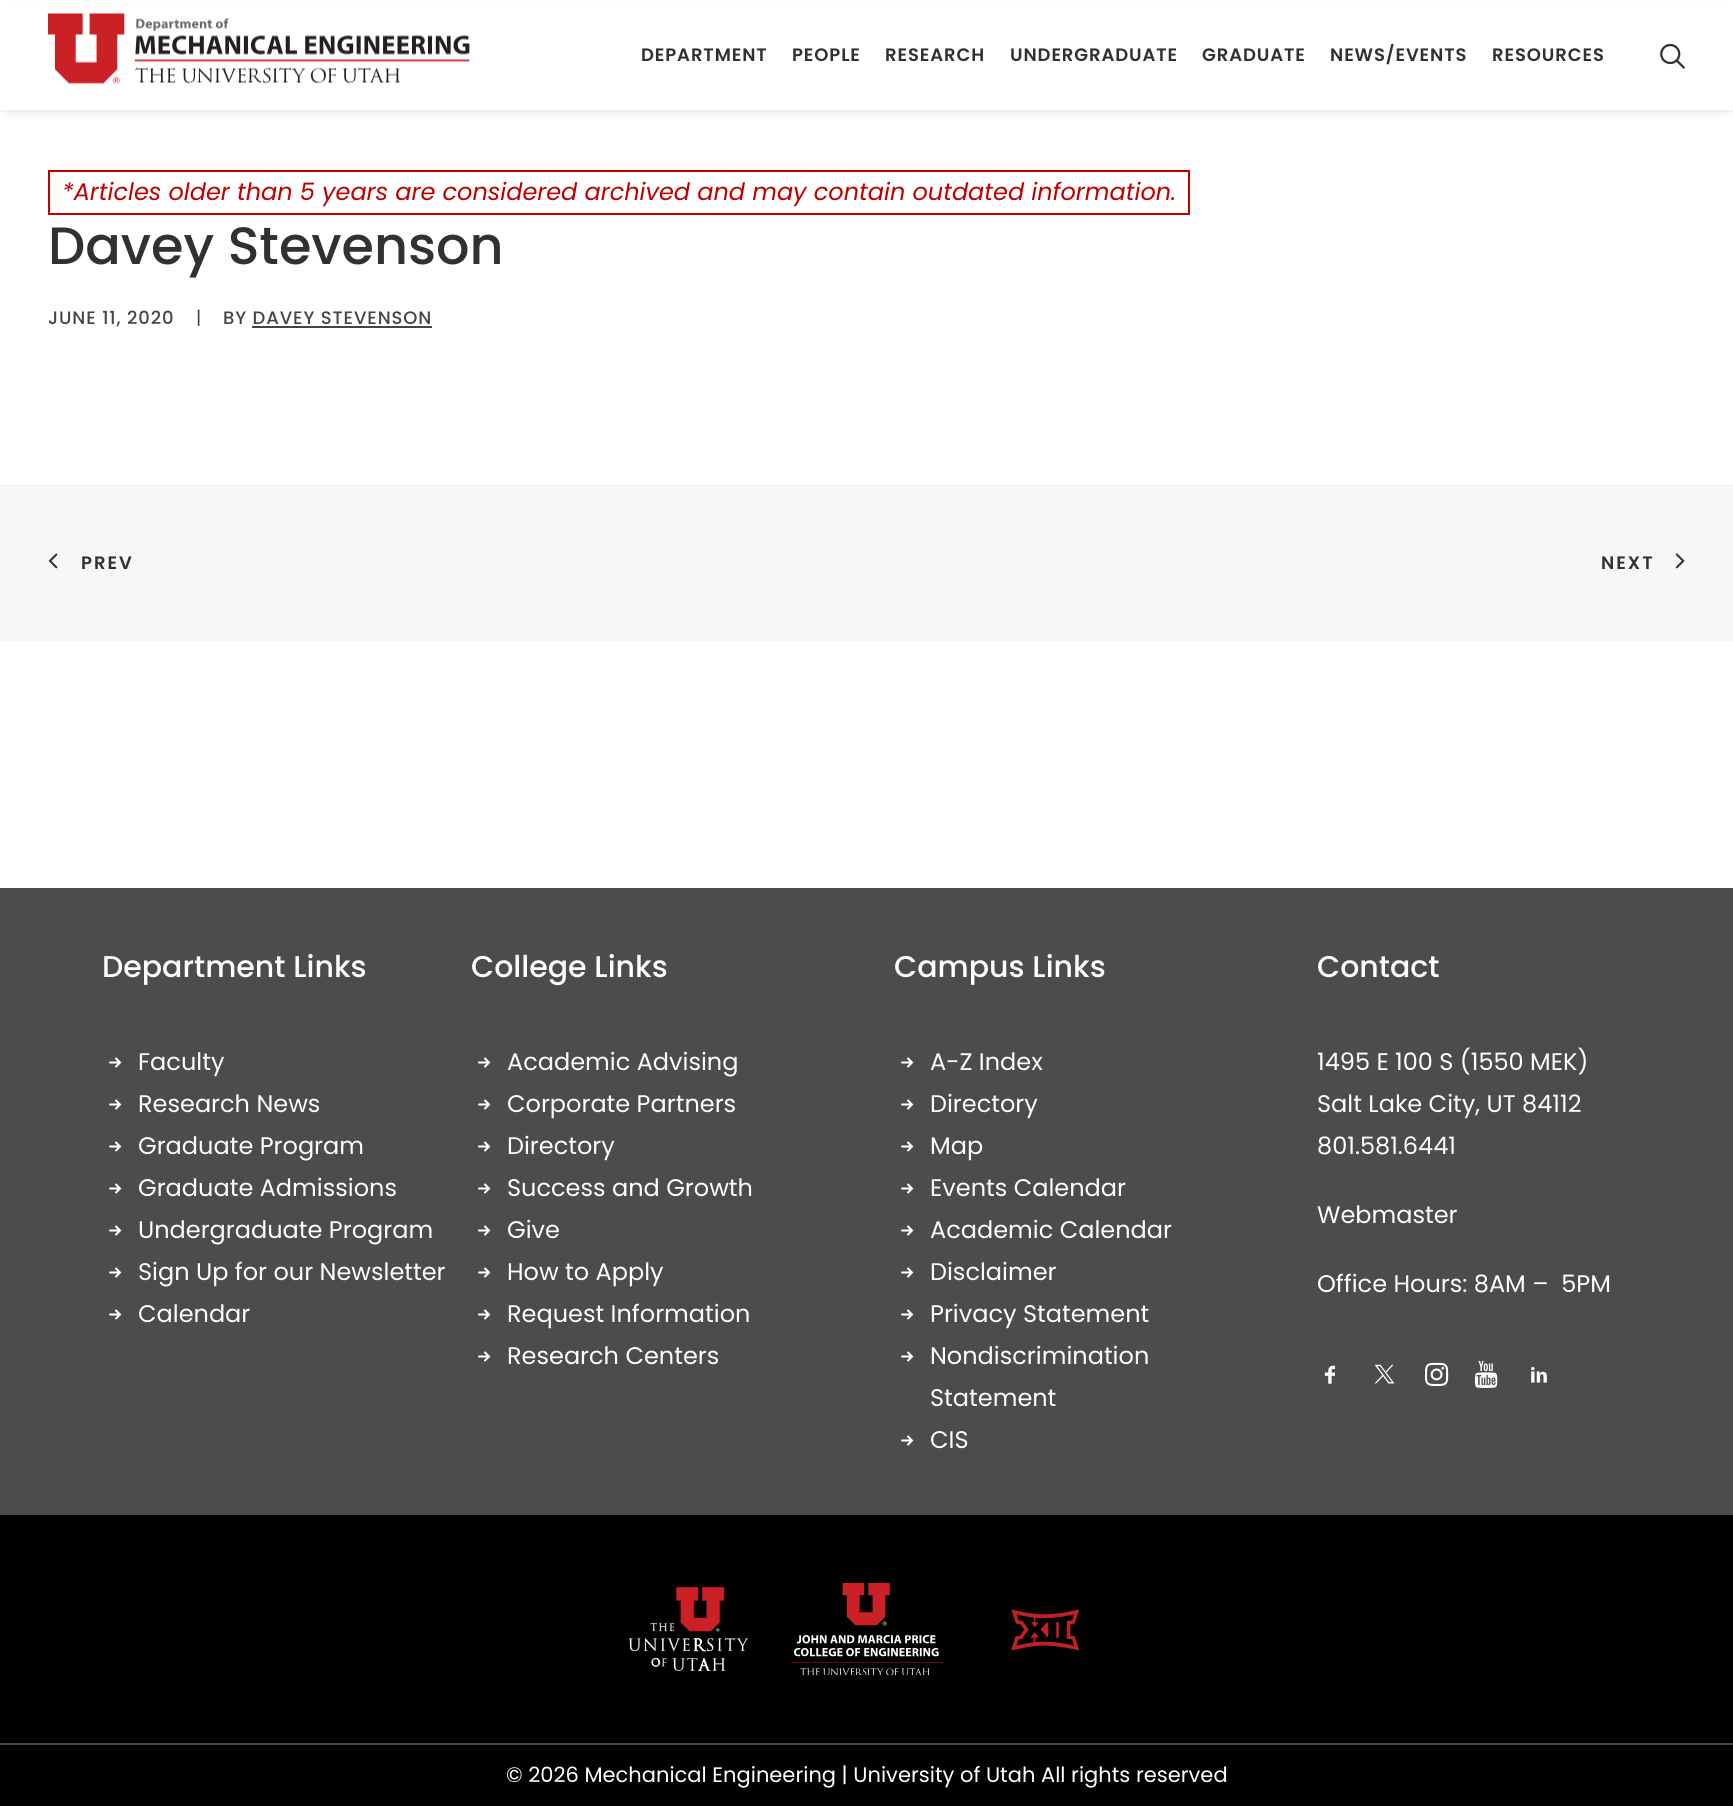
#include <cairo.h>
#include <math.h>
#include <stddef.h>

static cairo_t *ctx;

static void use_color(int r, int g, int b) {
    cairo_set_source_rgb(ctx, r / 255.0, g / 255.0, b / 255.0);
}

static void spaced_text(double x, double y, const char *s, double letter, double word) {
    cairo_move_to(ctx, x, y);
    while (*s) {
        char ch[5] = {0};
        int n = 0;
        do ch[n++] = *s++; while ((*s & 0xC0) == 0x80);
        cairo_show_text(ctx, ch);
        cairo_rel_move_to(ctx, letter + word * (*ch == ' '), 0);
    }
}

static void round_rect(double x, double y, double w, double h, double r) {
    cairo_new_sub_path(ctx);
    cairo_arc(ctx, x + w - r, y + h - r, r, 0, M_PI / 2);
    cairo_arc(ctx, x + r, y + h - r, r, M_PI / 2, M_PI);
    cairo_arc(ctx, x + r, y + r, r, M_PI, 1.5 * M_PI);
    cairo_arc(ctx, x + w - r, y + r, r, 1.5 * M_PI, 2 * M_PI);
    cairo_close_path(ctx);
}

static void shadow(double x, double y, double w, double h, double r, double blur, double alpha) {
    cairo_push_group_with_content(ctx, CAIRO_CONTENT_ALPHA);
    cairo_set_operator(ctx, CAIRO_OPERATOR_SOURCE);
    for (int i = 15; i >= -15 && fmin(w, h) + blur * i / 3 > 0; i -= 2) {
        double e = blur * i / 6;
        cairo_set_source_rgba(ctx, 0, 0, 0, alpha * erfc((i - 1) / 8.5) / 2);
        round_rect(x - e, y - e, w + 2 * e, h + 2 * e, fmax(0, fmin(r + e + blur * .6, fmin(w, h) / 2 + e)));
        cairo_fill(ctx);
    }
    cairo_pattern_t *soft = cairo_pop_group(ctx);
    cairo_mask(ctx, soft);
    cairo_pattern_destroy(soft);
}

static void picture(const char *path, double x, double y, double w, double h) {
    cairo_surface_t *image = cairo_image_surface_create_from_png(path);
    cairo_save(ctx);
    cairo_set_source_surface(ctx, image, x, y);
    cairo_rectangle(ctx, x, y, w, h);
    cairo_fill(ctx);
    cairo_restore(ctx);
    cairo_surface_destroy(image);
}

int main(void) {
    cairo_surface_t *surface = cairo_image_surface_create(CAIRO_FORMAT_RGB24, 1733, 1806);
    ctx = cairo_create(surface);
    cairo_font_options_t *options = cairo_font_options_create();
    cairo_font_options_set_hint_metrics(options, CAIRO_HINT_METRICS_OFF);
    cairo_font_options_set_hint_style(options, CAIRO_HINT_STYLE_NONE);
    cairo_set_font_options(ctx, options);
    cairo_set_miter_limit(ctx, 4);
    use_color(255, 255, 255);
    cairo_paint(ctx);
    use_color(0, 0, 0);
    shadow(9, 21, 1716, 81, 0, 7.5, 0.6);
    use_color(255, 255, 255);
    cairo_rectangle(ctx, 0, 5, 1733, 106);
    cairo_fill(ctx);
    cairo_set_source_rgba(ctx, 0.918, 0.918, 0.918, 0.5);
    cairo_rectangle(ctx, 0, 110, 1733, 2);
    cairo_fill(ctx);
    picture("img1.png", 48, 13, 422, 72);
    cairo_select_font_face(ctx, "Poppins SemiBold", CAIRO_FONT_SLANT_NORMAL, CAIRO_FONT_WEIGHT_NORMAL);
    cairo_set_font_size(ctx, 18);
    use_color(48, 49, 51);
    spaced_text(641, 61, "DEPARTMENT", 0.9, 0);
    spaced_text(792, 61, "PEOPLE", 0.9, 0);
    spaced_text(885, 61, "RESEARCH", 0.9, 0);
    spaced_text(1010, 61, "UNDERGRADUATE", 0.9, 0);
    spaced_text(1202, 61, "GRADUATE", 0.9, 0);
    spaced_text(1330, 61, "NEWS/EVENTS", 0.9, 0);
    spaced_text(1492, 61, "RESOURCES", 0.9, 0);
    picture("img2.png", 1660, 43, 25, 26);
    cairo_rectangle(ctx, 49, 171, 1140, 43);
    use_color(190, 0, 0);
    cairo_stroke(ctx);
    cairo_select_font_face(ctx, "Poppins", CAIRO_FONT_SLANT_ITALIC, CAIRO_FONT_WEIGHT_NORMAL);
    cairo_set_font_size(ctx, 24);
    cairo_move_to(ctx, 62, 200);
    cairo_show_text(ctx, "*Articles older than 5 years are considered archived and may contain outdated information.");
    cairo_select_font_face(ctx, "Poppins Medium", CAIRO_FONT_SLANT_NORMAL, CAIRO_FONT_WEIGHT_NORMAL);
    cairo_set_font_size(ctx, 52.5);
    use_color(48, 49, 51);
    cairo_move_to(ctx, 48, 264);
    cairo_show_text(ctx, "Davey Stevenson");
    cairo_set_font_size(ctx, 18);
    use_color(68, 68, 68);
    spaced_text(48, 324, "JUNE 11, 2020", 0.9, 0);
    cairo_select_font_face(ctx, "Poppins", CAIRO_FONT_SLANT_NORMAL, CAIRO_FONT_WEIGHT_NORMAL);
    spaced_text(196, 324, "|", 0.9, 0);
    cairo_select_font_face(ctx, "Poppins Medium", CAIRO_FONT_SLANT_NORMAL, CAIRO_FONT_WEIGHT_NORMAL);
    spaced_text(223, 324, "BY DAVEY STEVENSON", 0.9, 0);
    cairo_rectangle(ctx, 252, 326, 180, 2);
    cairo_fill(ctx);
    use_color(234, 234, 234);
    cairo_rectangle(ctx, 0, 485, 1733, 1);
    cairo_fill(ctx);
    use_color(247, 247, 247);
    cairo_rectangle(ctx, 0, 486, 1733, 155);
    cairo_fill(ctx);
    picture("img3.png", 48, 553, 10, 16);
    cairo_select_font_face(ctx, "Poppins SemiBold", CAIRO_FONT_SLANT_NORMAL, CAIRO_FONT_WEIGHT_NORMAL);
    use_color(48, 49, 51);
    spaced_text(81, 569, "PREV", 2, 0);
    spaced_text(1601, 569, "NEXT", 2, 0);
    picture("img4.png", 1675, 553, 10, 16);
    use_color(76, 76, 76);
    cairo_rectangle(ctx, 0, 888, 1733, 627);
    cairo_fill(ctx);
    cairo_select_font_face(ctx, "Poppins Medium", CAIRO_FONT_SLANT_NORMAL, CAIRO_FONT_WEIGHT_NORMAL);
    cairo_set_font_size(ctx, 30);
    use_color(255, 255, 255);
    cairo_move_to(ctx, 102, 977);
    cairo_show_text(ctx, "Department Links");
    picture("img5.png", 109, 1057, 13, 11);
    cairo_select_font_face(ctx, "Poppins", CAIRO_FONT_SLANT_NORMAL, CAIRO_FONT_WEIGHT_NORMAL);
    cairo_set_font_size(ctx, 24);
    cairo_move_to(ctx, 138, 1070);
    cairo_show_text(ctx, "Faculty");
    picture("img5.png", 109, 1099, 13, 11);
    cairo_move_to(ctx, 138, 1112);
    cairo_show_text(ctx, "Research News");
    picture("img5.png", 109, 1141, 13, 11);
    cairo_move_to(ctx, 138, 1154);
    cairo_show_text(ctx, "Graduate Program");
    picture("img5.png", 109, 1183, 13, 11);
    cairo_move_to(ctx, 138, 1196);
    cairo_show_text(ctx, "Graduate Admissions");
    picture("img5.png", 109, 1225, 13, 11);
    cairo_move_to(ctx, 138, 1238);
    cairo_show_text(ctx, "Undergraduate Program");
    picture("img5.png", 109, 1267, 13, 11);
    cairo_move_to(ctx, 138, 1280);
    cairo_show_text(ctx, "Sign Up for our Newsletter");
    picture("img5.png", 109, 1309, 13, 11);
    cairo_move_to(ctx, 138, 1322);
    cairo_show_text(ctx, "Calendar");
    cairo_select_font_face(ctx, "Poppins Medium", CAIRO_FONT_SLANT_NORMAL, CAIRO_FONT_WEIGHT_NORMAL);
    cairo_set_font_size(ctx, 30);
    cairo_move_to(ctx, 471, 977);
    cairo_show_text(ctx, "College Links");
    picture("img5.png", 478, 1057, 13, 11);
    cairo_select_font_face(ctx, "Poppins", CAIRO_FONT_SLANT_NORMAL, CAIRO_FONT_WEIGHT_NORMAL);
    cairo_set_font_size(ctx, 24);
    cairo_move_to(ctx, 507, 1070);
    cairo_show_text(ctx, "Academic Advising");
    picture("img5.png", 478, 1099, 13, 11);
    cairo_move_to(ctx, 507, 1112);
    cairo_show_text(ctx, "Corporate Partners");
    picture("img5.png", 478, 1141, 13, 11);
    cairo_move_to(ctx, 507, 1154);
    cairo_show_text(ctx, "Directory");
    picture("img5.png", 478, 1183, 13, 11);
    cairo_move_to(ctx, 507, 1196);
    cairo_show_text(ctx, "Success and Growth");
    picture("img5.png", 478, 1225, 13, 11);
    cairo_move_to(ctx, 507, 1238);
    cairo_show_text(ctx, "Give");
    picture("img5.png", 478, 1267, 13, 11);
    cairo_move_to(ctx, 507, 1280);
    cairo_show_text(ctx, "How to Apply");
    picture("img5.png", 478, 1309, 13, 11);
    cairo_move_to(ctx, 507, 1322);
    cairo_show_text(ctx, "Request Information");
    picture("img5.png", 478, 1351, 13, 11);
    cairo_move_to(ctx, 507, 1364);
    cairo_show_text(ctx, "Research Centers");
    cairo_select_font_face(ctx, "Poppins Medium", CAIRO_FONT_SLANT_NORMAL, CAIRO_FONT_WEIGHT_NORMAL);
    cairo_set_font_size(ctx, 30);
    cairo_move_to(ctx, 894, 977);
    cairo_show_text(ctx, "Campus Links");
    picture("img5.png", 901, 1057, 13, 11);
    cairo_select_font_face(ctx, "Poppins", CAIRO_FONT_SLANT_NORMAL, CAIRO_FONT_WEIGHT_NORMAL);
    cairo_set_font_size(ctx, 24);
    cairo_move_to(ctx, 930, 1070);
    cairo_show_text(ctx, "A-Z Index");
    picture("img5.png", 901, 1099, 13, 11);
    cairo_move_to(ctx, 930, 1112);
    cairo_show_text(ctx, "Directory");
    picture("img5.png", 901, 1141, 13, 11);
    cairo_move_to(ctx, 930, 1154);
    cairo_show_text(ctx, "Map");
    picture("img5.png", 901, 1183, 13, 11);
    cairo_move_to(ctx, 930, 1196);
    cairo_show_text(ctx, "Events Calendar");
    picture("img5.png", 901, 1225, 13, 11);
    cairo_move_to(ctx, 930, 1238);
    cairo_show_text(ctx, "Academic Calendar");
    picture("img5.png", 901, 1267, 13, 11);
    cairo_move_to(ctx, 930, 1280);
    cairo_show_text(ctx, "Disclaimer");
    picture("img5.png", 901, 1309, 13, 11);
    cairo_move_to(ctx, 930, 1322);
    cairo_show_text(ctx, "Privacy Statement");
    picture("img5.png", 901, 1351, 13, 11);
    cairo_move_to(ctx, 930, 1364);
    cairo_show_text(ctx, "Nondiscrimination");
    cairo_move_to(ctx, 930, 1406);
    cairo_show_text(ctx, "Statement");
    picture("img5.png", 901, 1435, 13, 11);
    cairo_move_to(ctx, 930, 1448);
    cairo_show_text(ctx, "CIS");
    cairo_select_font_face(ctx, "Poppins Medium", CAIRO_FONT_SLANT_NORMAL, CAIRO_FONT_WEIGHT_NORMAL);
    cairo_set_font_size(ctx, 30);
    cairo_move_to(ctx, 1317, 977);
    cairo_show_text(ctx, "Contact");
    cairo_select_font_face(ctx, "Poppins", CAIRO_FONT_SLANT_NORMAL, CAIRO_FONT_WEIGHT_NORMAL);
    cairo_set_font_size(ctx, 24);
    cairo_move_to(ctx, 1317, 1070);
    cairo_show_text(ctx, "1495 E 100 S (1550 MEK)");
    cairo_move_to(ctx, 1317, 1112);
    cairo_show_text(ctx, "Salt Lake City, UT 84112");
    cairo_move_to(ctx, 1317, 1154);
    cairo_show_text(ctx, "801.581.6441");
    cairo_move_to(ctx, 1317, 1223);
    cairo_show_text(ctx, "Webmaster");
    cairo_move_to(ctx, 1317, 1292);
    cairo_show_text(ctx, "Office Hours: 8AM –  5PM");
    picture("img6.png", 1324, 1365, 11, 19);
    picture("img7.png", 1374, 1364, 21, 20);
    picture("img8.png", 1425, 1362, 24, 24);
    picture("img9.png", 1474, 1360, 24, 28);
    picture("img10.png", 1531, 1366, 16, 17);
    use_color(0, 0, 0);
    cairo_rectangle(ctx, 0, 1515, 1733, 228);
    cairo_fill(ctx);
    picture("img11.png", 629, 1587, 119, 84);
    picture("img12.png", 791, 1583, 153, 93);
    picture("img13.png", 1011, 1609, 70, 42);
    cairo_rectangle(ctx, 0, 1745, 1733, 61);
    cairo_fill(ctx);
    use_color(68, 68, 68);
    cairo_rectangle(ctx, 0, 1743, 1733, 2);
    cairo_fill(ctx);
    cairo_set_font_size(ctx, 21);
    use_color(255, 255, 255);
    cairo_move_to(ctx, 506, 1782);
    cairo_show_text(ctx, "© 2026 Mechanical Engineering | University of Utah All rights reserved");
    cairo_surface_write_to_png(surface, "result.png");
    cairo_font_options_destroy(options);
    cairo_destroy(ctx);
    cairo_surface_destroy(surface);
    return 0;
}
